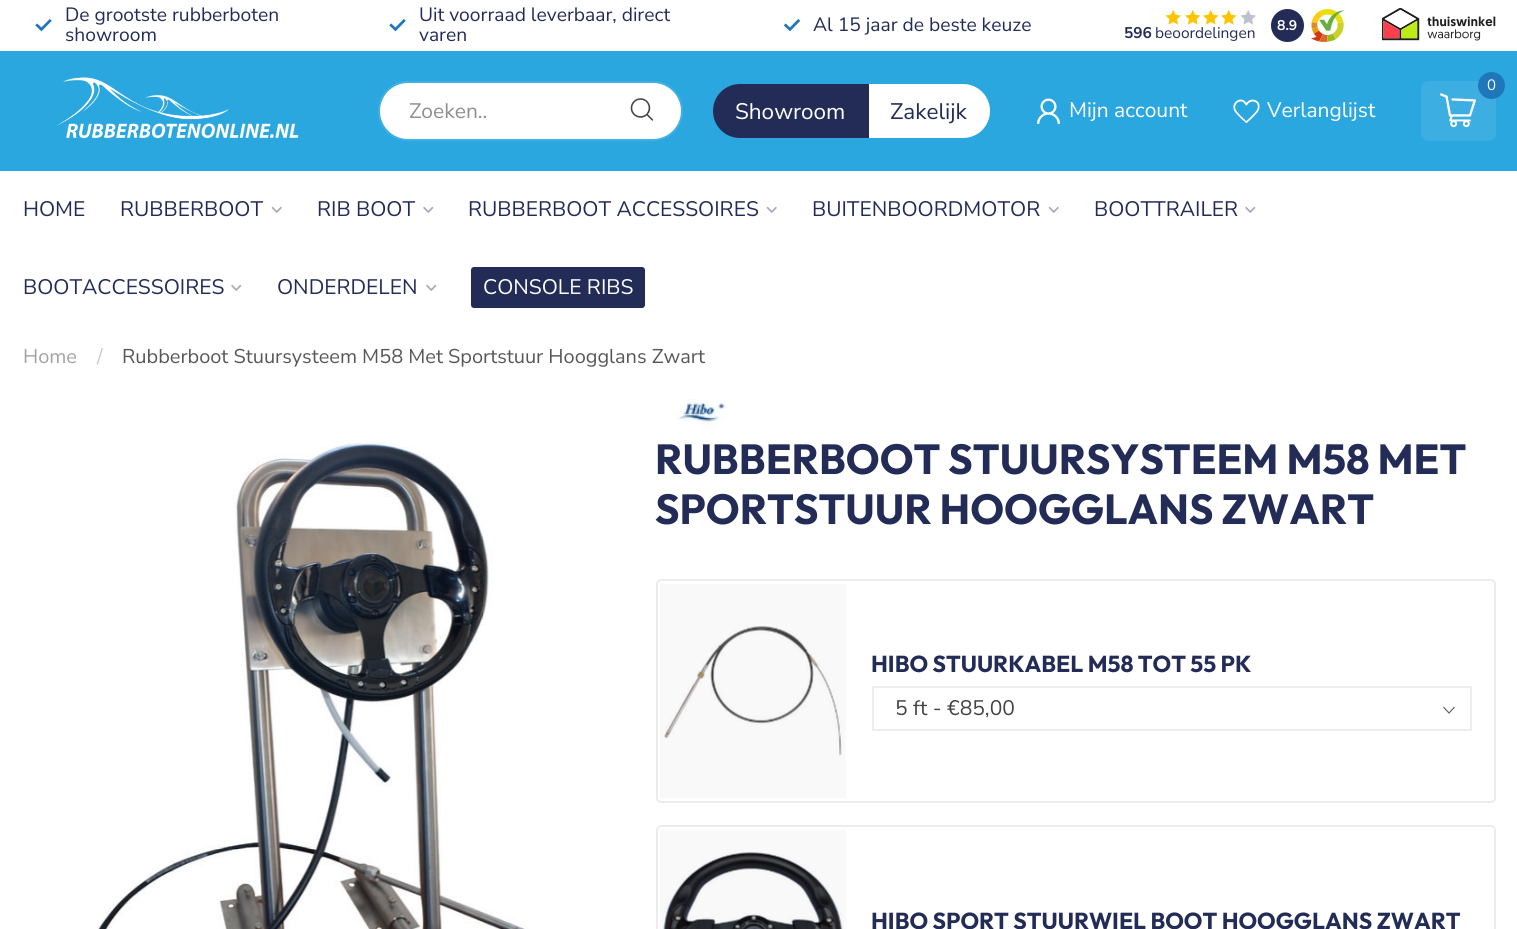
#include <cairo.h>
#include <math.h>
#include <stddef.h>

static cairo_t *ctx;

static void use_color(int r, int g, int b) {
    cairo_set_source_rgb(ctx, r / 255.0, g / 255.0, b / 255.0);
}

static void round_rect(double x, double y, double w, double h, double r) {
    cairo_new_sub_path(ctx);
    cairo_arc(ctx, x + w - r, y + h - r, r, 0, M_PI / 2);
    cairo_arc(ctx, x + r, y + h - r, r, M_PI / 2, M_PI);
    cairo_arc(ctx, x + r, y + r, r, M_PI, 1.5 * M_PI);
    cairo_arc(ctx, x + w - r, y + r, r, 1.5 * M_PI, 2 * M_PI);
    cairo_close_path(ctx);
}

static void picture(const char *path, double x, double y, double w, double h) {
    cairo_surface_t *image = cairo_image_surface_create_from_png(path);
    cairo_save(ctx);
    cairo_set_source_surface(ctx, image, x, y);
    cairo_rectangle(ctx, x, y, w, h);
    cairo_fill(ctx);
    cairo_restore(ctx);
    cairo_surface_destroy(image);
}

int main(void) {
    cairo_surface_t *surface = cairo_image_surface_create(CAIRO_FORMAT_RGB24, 1517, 929);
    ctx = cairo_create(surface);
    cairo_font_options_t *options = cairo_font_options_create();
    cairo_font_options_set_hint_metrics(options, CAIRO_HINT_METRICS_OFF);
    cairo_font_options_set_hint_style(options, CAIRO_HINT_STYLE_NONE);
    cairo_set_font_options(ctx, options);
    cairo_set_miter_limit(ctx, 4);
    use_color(255, 255, 255);
    cairo_paint(ctx);
    use_color(249, 249, 249);
    cairo_rectangle(ctx, 660, 830, 186, 99);
    cairo_fill(ctx);
    cairo_rectangle(ctx, 660, 584, 186, 214);
    cairo_fill(ctx);
    use_color(43, 167, 223);
    cairo_rectangle(ctx, 0, 51, 1517, 120);
    cairo_fill(ctx);
    picture("img1.png", 35, 19, 17, 13);
    cairo_select_font_face(ctx, "Nunito Sans", CAIRO_FONT_SLANT_NORMAL, CAIRO_FONT_WEIGHT_NORMAL);
    cairo_set_font_size(ctx, 19.25);
    use_color(35, 44, 87);
    cairo_move_to(ctx, 65, 21);
    cairo_show_text(ctx, "De grootste rubberboten");
    cairo_move_to(ctx, 65, 41);
    cairo_show_text(ctx, "showroom");
    picture("img1.png", 389, 19, 17, 13);
    cairo_move_to(ctx, 419, 21);
    cairo_show_text(ctx, "Uit voorraad leverbaar, direct");
    cairo_move_to(ctx, 419, 41);
    cairo_show_text(ctx, "varen");
    picture("img2.png", 783, 19, 18, 13);
    cairo_move_to(ctx, 813, 31);
    cairo_show_text(ctx, "Al 15 jaar de beste keuze");
    picture("img3.png", 1165, 10, 16, 15);
    picture("img4.png", 1185, 10, 16, 15);
    picture("img4.png", 1203, 10, 16, 15);
    picture("img4.png", 1221, 10, 16, 15);
    picture("img5.png", 1240, 10, 16, 15);
    cairo_select_font_face(ctx, "Nunito Sans", CAIRO_FONT_SLANT_NORMAL, CAIRO_FONT_WEIGHT_BOLD);
    cairo_set_font_size(ctx, 15.5);
    cairo_move_to(ctx, 1124, 38);
    cairo_show_text(ctx, "596");
    cairo_select_font_face(ctx, "Nunito Sans", CAIRO_FONT_SLANT_NORMAL, CAIRO_FONT_WEIGHT_NORMAL);
    cairo_move_to(ctx, 1155, 38);
    cairo_show_text(ctx, "beoordelingen");
    cairo_new_path(ctx);
    cairo_arc(ctx, 1287.5, 25.5, 16.5, 0, 2 * M_PI);
    cairo_fill(ctx);
    cairo_select_font_face(ctx, "Nunito Sans", CAIRO_FONT_SLANT_NORMAL, CAIRO_FONT_WEIGHT_BOLD);
    cairo_set_font_size(ctx, 14);
    use_color(255, 255, 255);
    cairo_move_to(ctx, 1277, 30);
    cairo_show_text(ctx, "8.9");
    picture("img6.png", 1311, 9, 33, 33);
    picture("img7.png", 1382, 8, 114, 33);
    picture("img8.png", 57, 77, 242, 62);
    round_rect(379, 82, 303, 58, 29);
    cairo_fill_preserve(ctx);
    use_color(64, 175, 226);
    cairo_stroke(ctx);
    cairo_select_font_face(ctx, "Nunito Sans", CAIRO_FONT_SLANT_NORMAL, CAIRO_FONT_WEIGHT_NORMAL);
    cairo_set_font_size(ctx, 21);
    use_color(143, 143, 143);
    cairo_move_to(ctx, 409, 118);
    cairo_show_text(ctx, "Zoeken..");
    picture("img9.png", 630, 98, 24, 23);
    use_color(61, 174, 226);
    round_rect(1421, 81, 75, 60, 8);
    cairo_fill(ctx);
    use_color(32, 118, 187);
    cairo_arc(ctx, 1491.5, 85.5, 13.5, 0, 2 * M_PI);
    cairo_fill(ctx);
    cairo_set_font_size(ctx, 15);
    use_color(255, 255, 255);
    cairo_move_to(ctx, 1487, 90);
    cairo_show_text(ctx, "0");
    picture("img10.png", 1440, 93, 36, 35);
    use_color(35, 44, 87);
    cairo_new_path(ctx);
    cairo_move_to(ctx, 740, 84);
    cairo_line_to(ctx, 869, 84);
    cairo_line_to(ctx, 869, 138);
    cairo_line_to(ctx, 740, 138);
    cairo_curve_to(ctx, 725, 138, 713, 126, 713, 111);
    cairo_curve_to(ctx, 713, 96, 725, 84, 740, 84);
    cairo_close_path(ctx);
    cairo_fill(ctx);
    cairo_set_font_size(ctx, 22.5);
    use_color(255, 255, 255);
    cairo_move_to(ctx, 735, 119);
    cairo_show_text(ctx, "Showroom");
    cairo_new_path(ctx);
    cairo_move_to(ctx, 869, 84);
    cairo_line_to(ctx, 963, 84);
    cairo_curve_to(ctx, 978, 84, 990, 96, 990, 111);
    cairo_curve_to(ctx, 990, 126, 978, 138, 963, 138);
    cairo_line_to(ctx, 869, 138);
    cairo_close_path(ctx);
    cairo_fill(ctx);
    use_color(35, 44, 87);
    cairo_move_to(ctx, 890, 119);
    cairo_show_text(ctx, "Zakelijk");
    picture("img11.png", 1037, 98, 23, 26);
    cairo_set_font_size(ctx, 21);
    use_color(255, 255, 255);
    cairo_move_to(ctx, 1069, 117);
    cairo_show_text(ctx, "Mijn account");
    picture("img12.png", 1233, 99, 27, 24);
    cairo_move_to(ctx, 1267, 117);
    cairo_show_text(ctx, "Verlanglijst");
    use_color(35, 44, 87);
    cairo_move_to(ctx, 23, 216);
    cairo_show_text(ctx, "HOME");
    cairo_move_to(ctx, 120, 216);
    cairo_show_text(ctx, "RUBBERBOOT");
    picture("img13.png", 271, 206, 11, 7);
    cairo_move_to(ctx, 317, 216);
    cairo_show_text(ctx, "RIB BOOT");
    picture("img14.png", 423, 206, 11, 7);
    cairo_move_to(ctx, 468, 216);
    cairo_show_text(ctx, "RUBBERBOOT ACCESSOIRES");
    picture("img13.png", 766, 206, 11, 7);
    cairo_move_to(ctx, 812, 216);
    cairo_show_text(ctx, "BUITENBOORDMOTOR");
    picture("img13.png", 1048, 206, 11, 7);
    cairo_move_to(ctx, 1094, 216);
    cairo_show_text(ctx, "BOOTTRAILER");
    picture("img14.png", 1245, 206, 11, 7);
    cairo_move_to(ctx, 23, 294);
    cairo_show_text(ctx, "BOOTACCESSOIRES");
    picture("img14.png", 231, 284, 11, 7);
    cairo_move_to(ctx, 277, 294);
    cairo_show_text(ctx, "ONDERDELEN");
    picture("img14.png", 426, 284, 11, 7);
    round_rect(471, 267, 174, 41, 3);
    cairo_fill(ctx);
    use_color(255, 255, 255);
    cairo_move_to(ctx, 483, 294);
    cairo_show_text(ctx, "CONSOLE RIBS");
    cairo_set_font_size(ctx, 19.95);
    use_color(162, 162, 162);
    cairo_move_to(ctx, 23, 363);
    cairo_show_text(ctx, "Home");
    use_color(199, 199, 199);
    cairo_move_to(ctx, 97, 363);
    cairo_show_text(ctx, "/");
    use_color(87, 87, 87);
    cairo_move_to(ctx, 122, 363);
    cairo_show_text(ctx, "Rubberboot Stuursysteem M58 Met Sportstuur Hoogglans Zwart");
    picture("img15.png", 97, 439, 432, 490);
    picture("img16.png", 676, 399, 51, 31);
    cairo_select_font_face(ctx, "Outfit", CAIRO_FONT_SLANT_NORMAL, CAIRO_FONT_WEIGHT_BOLD);
    cairo_set_font_size(ctx, 42);
    use_color(35, 44, 87);
    cairo_move_to(ctx, 655, 474);
    cairo_show_text(ctx, "RUBBERBOOT STUURSYSTEEM M58 MET");
    cairo_move_to(ctx, 655, 524);
    cairo_show_text(ctx, "SPORTSTUUR HOOGGLANS ZWART");
    round_rect(657, 580, 838, 222, 4);
    use_color(236, 236, 236);
    cairo_stroke(ctx);
    picture("img17.png", 664, 626, 179, 130);
    cairo_set_font_size(ctx, 23.1);
    use_color(35, 44, 87);
    cairo_move_to(ctx, 871, 672);
    cairo_show_text(ctx, "HIBO STUURKABEL M58 TOT 55 PK");
    cairo_new_path(ctx);
    cairo_move_to(ctx, 1454.5, 707);
    cairo_line_to(ctx, 1449, 713);
    cairo_line_to(ctx, 1443.5, 707);
    use_color(89, 89, 89);
    cairo_set_line_width(ctx, 1.1);
    cairo_stroke(ctx);
    cairo_rectangle(ctx, 873, 687, 598, 43);
    use_color(238, 238, 238);
    cairo_set_line_width(ctx, 2);
    cairo_stroke(ctx);
    cairo_select_font_face(ctx, "Nunito Sans", CAIRO_FONT_SLANT_NORMAL, CAIRO_FONT_WEIGHT_NORMAL);
    cairo_set_font_size(ctx, 21);
    use_color(68, 68, 68);
    cairo_move_to(ctx, 895, 715);
    cairo_show_text(ctx, "5 ft - €85,00");
    round_rect(657, 826, 838, 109, 4);
    use_color(236, 236, 236);
    cairo_stroke(ctx);
    picture("img18.png", 662, 852, 181, 77);
    cairo_select_font_face(ctx, "Outfit", CAIRO_FONT_SLANT_NORMAL, CAIRO_FONT_WEIGHT_BOLD);
    cairo_set_font_size(ctx, 23.1);
    use_color(35, 44, 87);
    cairo_move_to(ctx, 871, 929);
    cairo_show_text(ctx, "HIBO SPORT STUURWIEL BOOT HOOGGLANS ZWART");
    cairo_surface_write_to_png(surface, "result.png");
    cairo_font_options_destroy(options);
    cairo_destroy(ctx);
    cairo_surface_destroy(surface);
    return 0;
}
